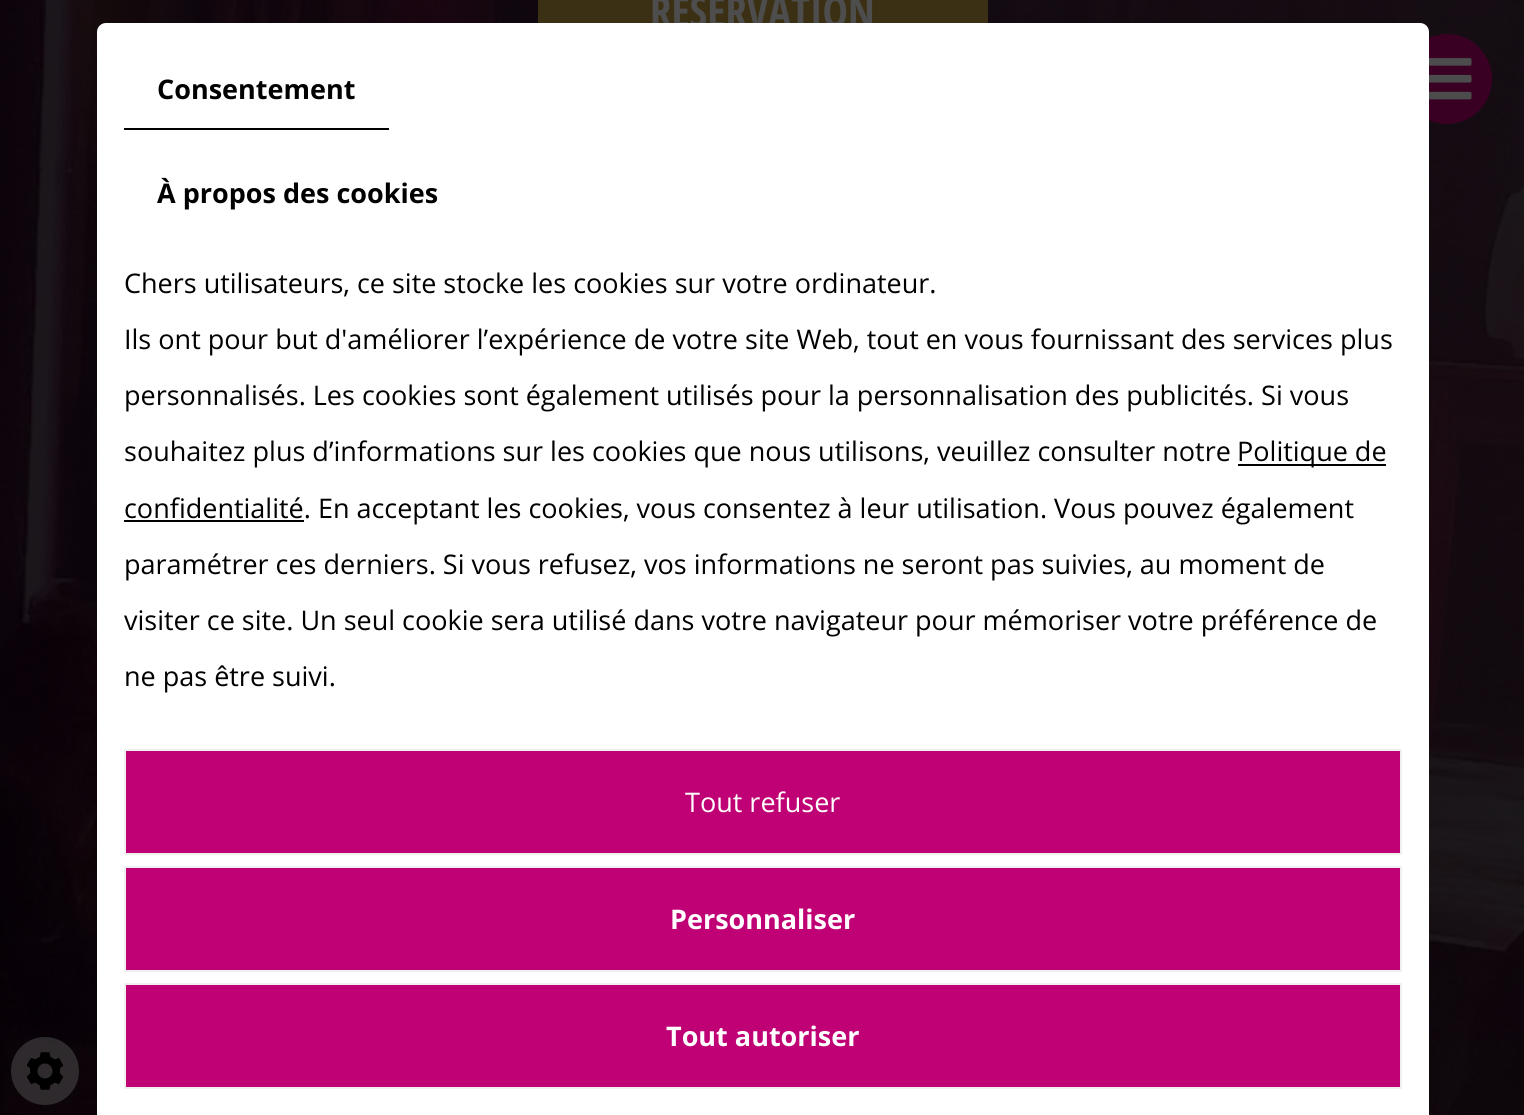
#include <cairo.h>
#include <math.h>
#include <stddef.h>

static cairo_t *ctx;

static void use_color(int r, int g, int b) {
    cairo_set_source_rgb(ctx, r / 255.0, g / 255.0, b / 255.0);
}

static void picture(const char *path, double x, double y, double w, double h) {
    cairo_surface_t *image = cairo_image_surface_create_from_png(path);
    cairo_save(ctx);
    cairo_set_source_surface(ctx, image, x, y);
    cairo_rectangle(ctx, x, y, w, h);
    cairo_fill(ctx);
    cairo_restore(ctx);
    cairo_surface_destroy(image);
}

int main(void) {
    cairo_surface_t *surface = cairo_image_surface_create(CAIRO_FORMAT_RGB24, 1524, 1115);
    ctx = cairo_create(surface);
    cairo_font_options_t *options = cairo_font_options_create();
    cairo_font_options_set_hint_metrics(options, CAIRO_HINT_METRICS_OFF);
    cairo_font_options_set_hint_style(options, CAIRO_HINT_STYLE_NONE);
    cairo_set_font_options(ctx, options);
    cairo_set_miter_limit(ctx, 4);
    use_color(255, 255, 255);
    cairo_paint(ctx);
    picture("img1.png", 0, 0, 1524, 1115);
    picture("img2.png", 0, 0, 1524, 1115);
    use_color(59, 48, 19);
    cairo_rectangle(ctx, 538, 0, 450, 23);
    cairo_fill(ctx);
    cairo_select_font_face(ctx, "Open Sans Condensed", CAIRO_FONT_SLANT_NORMAL, CAIRO_FONT_WEIGHT_BOLD);
    cairo_set_font_size(ctx, 42.75);
    use_color(77, 77, 77);
    cairo_move_to(ctx, 650, 27);
    cairo_show_text(ctx, "RÉSERVATION");
    use_color(58, 0, 35);
    cairo_new_path(ctx);
    cairo_arc(ctx, 1447, 79, 45, 0, 2 * M_PI);
    cairo_fill(ctx);
    picture("img3.png", 1429, 58, 43, 42);
    use_color(255, 255, 255);
    cairo_new_path(ctx);
    cairo_move_to(ctx, 106, 23);
    cairo_line_to(ctx, 1420, 23);
    cairo_curve_to(ctx, 1425, 23, 1429, 27, 1429, 32);
    cairo_line_to(ctx, 1429, 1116);
    cairo_line_to(ctx, 97, 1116);
    cairo_line_to(ctx, 97, 32);
    cairo_curve_to(ctx, 97, 27, 101, 23, 106, 23);
    cairo_close_path(ctx);
    cairo_fill(ctx);
    use_color(0, 0, 0);
    cairo_rectangle(ctx, 124, 128, 265, 2);
    cairo_fill(ctx);
    cairo_select_font_face(ctx, "Open Sans", CAIRO_FONT_SLANT_NORMAL, CAIRO_FONT_WEIGHT_BOLD);
    cairo_set_font_size(ctx, 27);
    cairo_move_to(ctx, 157, 99);
    cairo_show_text(ctx, "Consentement");
    cairo_move_to(ctx, 157, 203);
    cairo_show_text(ctx, "À propos des cookies");
    cairo_select_font_face(ctx, "Open Sans", CAIRO_FONT_SLANT_NORMAL, CAIRO_FONT_WEIGHT_NORMAL);
    cairo_move_to(ctx, 124, 293);
    cairo_show_text(ctx, "Chers utilisateurs, ce site stocke les cookies sur votre ordinateur.");
    cairo_move_to(ctx, 124, 349);
    cairo_show_text(ctx, "Ils ont pour but d'améliorer l’expérience de votre site Web, tout en vous fournissant des services plus");
    cairo_move_to(ctx, 124, 405);
    cairo_show_text(ctx, "personnalisés. Les cookies sont également utilisés pour la personnalisation des publicités. Si vous");
    cairo_move_to(ctx, 124, 461);
    cairo_show_text(ctx, "souhaitez plus d’informations sur les cookies que nous utilisons, veuillez consulter notre");
    cairo_rectangle(ctx, 1238, 464, 148, 2);
    cairo_fill(ctx);
    cairo_move_to(ctx, 1237, 461);
    cairo_show_text(ctx, "Politique de");
    cairo_rectangle(ctx, 124, 520, 180, 2);
    cairo_fill(ctx);
    cairo_move_to(ctx, 124, 518);
    cairo_show_text(ctx, "confidentialité. En acceptant les cookies, vous consentez à leur utilisation. Vous pouvez également");
    cairo_move_to(ctx, 124, 574);
    cairo_show_text(ctx, "paramétrer ces derniers. Si vous refusez, vos informations ne seront pas suivies, au moment de");
    cairo_move_to(ctx, 124, 630);
    cairo_show_text(ctx, "visiter ce site. Un seul cookie sera utilisé dans votre navigateur pour mémoriser votre préférence de");
    cairo_move_to(ctx, 124, 686);
    cairo_show_text(ctx, "ne pas être suivi.");
    use_color(192, 1, 117);
    cairo_rectangle(ctx, 125, 750, 1276, 104);
    cairo_fill_preserve(ctx);
    use_color(240, 240, 240);
    cairo_stroke(ctx);
    use_color(255, 255, 255);
    cairo_move_to(ctx, 685, 812);
    cairo_show_text(ctx, "Tout refuser");
    use_color(192, 1, 117);
    cairo_rectangle(ctx, 125, 867, 1276, 104);
    cairo_fill_preserve(ctx);
    use_color(240, 240, 240);
    cairo_stroke(ctx);
    cairo_select_font_face(ctx, "Open Sans", CAIRO_FONT_SLANT_NORMAL, CAIRO_FONT_WEIGHT_BOLD);
    use_color(255, 255, 255);
    cairo_move_to(ctx, 670, 929);
    cairo_show_text(ctx, "Personnaliser");
    use_color(192, 1, 117);
    cairo_rectangle(ctx, 125, 984, 1276, 104);
    cairo_fill_preserve(ctx);
    use_color(240, 240, 240);
    cairo_stroke(ctx);
    use_color(255, 255, 255);
    cairo_move_to(ctx, 666, 1046);
    cairo_show_text(ctx, "Tout autoriser");
    cairo_set_source_rgba(ctx, 0.302, 0.302, 0.302, 0.54);
    cairo_new_path(ctx);
    cairo_arc(ctx, 45, 1071, 34, 0, 2 * M_PI);
    cairo_fill(ctx);
    picture("img4.png", 26, 1052, 38, 38);
    cairo_surface_write_to_png(surface, "result.png");
    cairo_font_options_destroy(options);
    cairo_destroy(ctx);
    cairo_surface_destroy(surface);
    return 0;
}
